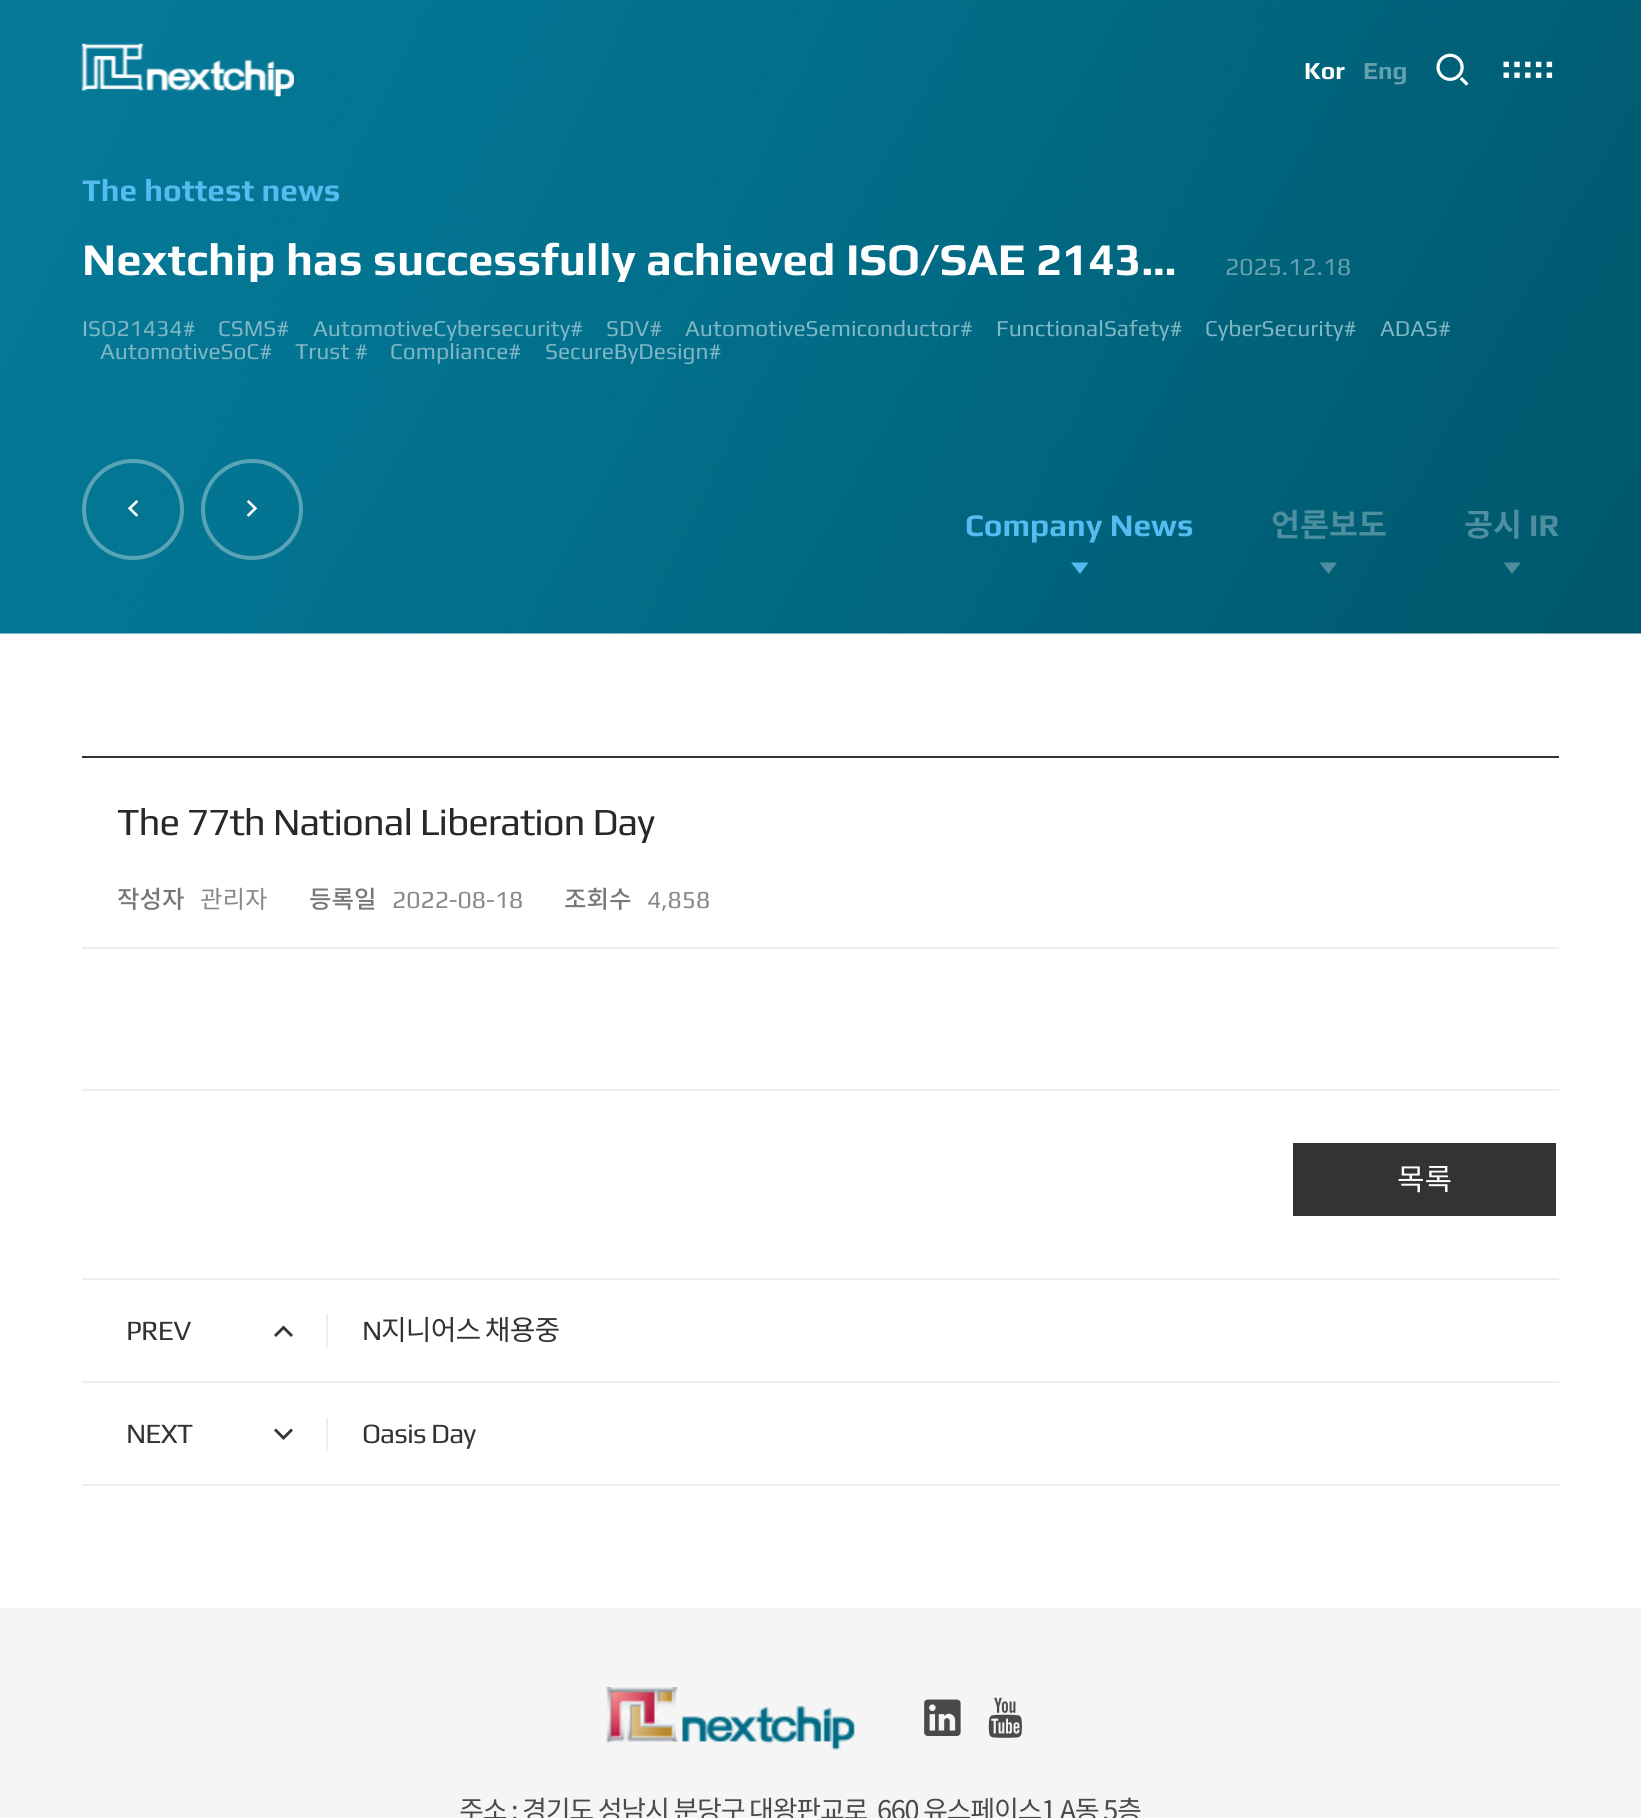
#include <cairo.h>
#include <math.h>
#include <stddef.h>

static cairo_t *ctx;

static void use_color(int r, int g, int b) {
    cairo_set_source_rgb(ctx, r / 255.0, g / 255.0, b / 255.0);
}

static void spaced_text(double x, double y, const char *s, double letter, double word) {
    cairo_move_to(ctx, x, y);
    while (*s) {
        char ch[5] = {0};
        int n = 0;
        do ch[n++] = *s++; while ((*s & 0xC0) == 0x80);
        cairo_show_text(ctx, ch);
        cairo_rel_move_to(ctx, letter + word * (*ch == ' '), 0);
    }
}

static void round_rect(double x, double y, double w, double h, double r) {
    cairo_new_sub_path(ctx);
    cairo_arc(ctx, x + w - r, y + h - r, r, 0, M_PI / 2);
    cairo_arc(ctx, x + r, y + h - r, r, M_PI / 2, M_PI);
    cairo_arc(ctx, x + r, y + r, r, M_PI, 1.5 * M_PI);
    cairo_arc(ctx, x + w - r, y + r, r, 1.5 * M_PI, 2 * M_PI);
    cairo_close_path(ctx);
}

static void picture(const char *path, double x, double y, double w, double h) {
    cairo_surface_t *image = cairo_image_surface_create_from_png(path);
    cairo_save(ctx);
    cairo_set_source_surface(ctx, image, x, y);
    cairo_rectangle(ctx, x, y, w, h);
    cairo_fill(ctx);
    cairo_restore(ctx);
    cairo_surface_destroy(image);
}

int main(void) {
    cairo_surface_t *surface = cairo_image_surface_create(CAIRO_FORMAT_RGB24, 1641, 1818);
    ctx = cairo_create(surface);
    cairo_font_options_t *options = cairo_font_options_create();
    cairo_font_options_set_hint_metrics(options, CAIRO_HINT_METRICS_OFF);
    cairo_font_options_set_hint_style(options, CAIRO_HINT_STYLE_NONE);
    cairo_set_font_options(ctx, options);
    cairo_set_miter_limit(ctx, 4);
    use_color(255, 255, 255);
    cairo_paint(ctx);
    picture("img4.png", 0, 0, 1641, 634);
    picture("img1.png", 81, 43, 213, 54);
    cairo_select_font_face(ctx, "Play", CAIRO_FONT_SLANT_NORMAL, CAIRO_FONT_WEIGHT_BOLD);
    cairo_set_font_size(ctx, 24.5);
    use_color(255, 255, 255);
    cairo_move_to(ctx, 1304, 79);
    cairo_show_text(ctx, "Kor");
    use_color(102, 161, 175);
    cairo_move_to(ctx, 1363, 79);
    cairo_show_text(ctx, "Eng");
    picture("img2.png", 1436, 53, 33, 33);
    picture("img3.png", 1503, 61, 50, 17);
    cairo_set_font_size(ctx, 31.5);
    use_color(85, 188, 241);
    cairo_move_to(ctx, 82, 201);
    cairo_show_text(ctx, "The hottest news");
    cairo_save(ctx);
    cairo_rectangle(ctx, 82, 236, 1269, 46);
    cairo_clip(ctx);
    cairo_set_font_size(ctx, 45.5);
    use_color(255, 255, 255);
    cairo_move_to(ctx, 82, 275);
    cairo_show_text(ctx, "Nextchip has successfully achieved ISO/SAE 2143...");
    cairo_restore(ctx);
    cairo_select_font_face(ctx, "Play", CAIRO_FONT_SLANT_NORMAL, CAIRO_FONT_WEIGHT_NORMAL);
    cairo_set_font_size(ctx, 24.5);
    use_color(102, 161, 175);
    cairo_move_to(ctx, 1225, 275);
    cairo_show_text(ctx, "2025.12.18");
    cairo_set_font_size(ctx, 22.75);
    use_color(129, 183, 197);
    cairo_move_to(ctx, 82, 336);
    cairo_show_text(ctx, "ISO21434#");
    cairo_move_to(ctx, 218, 336);
    cairo_show_text(ctx, "CSMS#");
    cairo_move_to(ctx, 313, 336);
    cairo_show_text(ctx, "AutomotiveCybersecurity#");
    cairo_move_to(ctx, 606, 336);
    cairo_show_text(ctx, "SDV#");
    cairo_move_to(ctx, 685, 336);
    cairo_show_text(ctx, "AutomotiveSemiconductor#");
    cairo_move_to(ctx, 996, 336);
    cairo_show_text(ctx, "FunctionalSafety#");
    cairo_move_to(ctx, 1205, 336);
    cairo_show_text(ctx, "CyberSecurity#");
    cairo_move_to(ctx, 1380, 336);
    cairo_show_text(ctx, "ADAS#");
    cairo_move_to(ctx, 100, 359);
    cairo_show_text(ctx, "AutomotiveSoC#");
    cairo_move_to(ctx, 295, 359);
    cairo_show_text(ctx, "Trust #");
    cairo_move_to(ctx, 390, 359);
    cairo_show_text(ctx, "Compliance#");
    cairo_move_to(ctx, 545, 359);
    cairo_show_text(ctx, "SecureByDesign#");
    round_rect(84, 461, 98, 97, 48.5);
    cairo_set_source_rgba(ctx, 1, 1, 1, 0.34);
    cairo_set_line_width(ctx, 4);
    cairo_stroke(ctx);
    picture("img5.png", 127, 500, 12, 17);
    round_rect(203, 461, 98, 97, 48.5);
    cairo_stroke(ctx);
    picture("img6.png", 246, 500, 12, 17);
    cairo_select_font_face(ctx, "Play", CAIRO_FONT_SLANT_NORMAL, CAIRO_FONT_WEIGHT_BOLD);
    cairo_set_font_size(ctx, 31.5);
    use_color(85, 188, 241);
    cairo_move_to(ctx, 965, 536);
    cairo_show_text(ctx, "Company News");
    cairo_new_path(ctx);
    cairo_move_to(ctx, 1088.5, 562.5);
    cairo_line_to(ctx, 1080, 574);
    cairo_line_to(ctx, 1071, 562.5);
    cairo_close_path(ctx);
    cairo_fill(ctx);
    cairo_select_font_face(ctx, "Noto Sans KR", CAIRO_FONT_SLANT_NORMAL, CAIRO_FONT_WEIGHT_BOLD);
    use_color(77, 143, 159);
    cairo_move_to(ctx, 1271, 536);
    cairo_show_text(ctx, "언론보도");
    use_color(77, 143, 158);
    cairo_new_path(ctx);
    cairo_move_to(ctx, 1337, 562.5);
    cairo_line_to(ctx, 1328.5, 574);
    cairo_line_to(ctx, 1319.5, 562.5);
    cairo_close_path(ctx);
    cairo_fill(ctx);
    use_color(77, 143, 159);
    cairo_move_to(ctx, 1464, 536);
    cairo_show_text(ctx, "공시");
    cairo_select_font_face(ctx, "Play", CAIRO_FONT_SLANT_NORMAL, CAIRO_FONT_WEIGHT_BOLD);
    cairo_move_to(ctx, 1529, 536);
    cairo_show_text(ctx, "IR");
    use_color(77, 140, 155);
    cairo_new_path(ctx);
    cairo_move_to(ctx, 1521, 562.5);
    cairo_line_to(ctx, 1512, 574);
    cairo_line_to(ctx, 1503.5, 562.5);
    cairo_close_path(ctx);
    cairo_fill(ctx);
    use_color(51, 51, 51);
    cairo_rectangle(ctx, 82, 756, 1477, 2);
    cairo_fill(ctx);
    use_color(238, 238, 238);
    cairo_rectangle(ctx, 82, 947, 1477, 2);
    cairo_fill(ctx);
    cairo_select_font_face(ctx, "Play", CAIRO_FONT_SLANT_NORMAL, CAIRO_FONT_WEIGHT_NORMAL);
    cairo_set_font_size(ctx, 38.5);
    use_color(40, 40, 40);
    spaced_text(117, 835, "The 77th National Liberation Day", -1.05, 0);
    cairo_select_font_face(ctx, "Noto Sans KR Medium", CAIRO_FONT_SLANT_NORMAL, CAIRO_FONT_WEIGHT_NORMAL);
    cairo_set_font_size(ctx, 24.5);
    use_color(119, 119, 119);
    cairo_move_to(ctx, 117, 908);
    cairo_show_text(ctx, "작성자");
    cairo_select_font_face(ctx, "Noto Sans KR", CAIRO_FONT_SLANT_NORMAL, CAIRO_FONT_WEIGHT_NORMAL);
    use_color(136, 136, 136);
    cairo_move_to(ctx, 200, 908);
    cairo_show_text(ctx, "관리자");
    cairo_select_font_face(ctx, "Noto Sans KR Medium", CAIRO_FONT_SLANT_NORMAL, CAIRO_FONT_WEIGHT_NORMAL);
    use_color(119, 119, 119);
    cairo_move_to(ctx, 309, 908);
    cairo_show_text(ctx, "등록일");
    cairo_select_font_face(ctx, "Play", CAIRO_FONT_SLANT_NORMAL, CAIRO_FONT_WEIGHT_NORMAL);
    use_color(136, 136, 136);
    cairo_move_to(ctx, 392, 908);
    cairo_show_text(ctx, "2022-08-18");
    cairo_select_font_face(ctx, "Noto Sans KR Medium", CAIRO_FONT_SLANT_NORMAL, CAIRO_FONT_WEIGHT_NORMAL);
    use_color(119, 119, 119);
    cairo_move_to(ctx, 564, 908);
    cairo_show_text(ctx, "조회수");
    cairo_select_font_face(ctx, "Play", CAIRO_FONT_SLANT_NORMAL, CAIRO_FONT_WEIGHT_NORMAL);
    use_color(136, 136, 136);
    cairo_move_to(ctx, 647, 908);
    cairo_show_text(ctx, "4,858");
    use_color(238, 238, 238);
    cairo_rectangle(ctx, 82, 1089, 1477, 2);
    cairo_fill(ctx);
    use_color(51, 51, 51);
    cairo_rectangle(ctx, 1293, 1143, 263, 73);
    cairo_fill(ctx);
    cairo_select_font_face(ctx, "Noto Sans KR", CAIRO_FONT_SLANT_NORMAL, CAIRO_FONT_WEIGHT_NORMAL);
    cairo_set_font_size(ctx, 30);
    use_color(255, 255, 255);
    cairo_move_to(ctx, 1397, 1190);
    cairo_show_text(ctx, "목록");
    use_color(238, 238, 238);
    cairo_rectangle(ctx, 82, 1278, 1477, 2);
    cairo_fill(ctx);
    cairo_rectangle(ctx, 82, 1381, 1477, 2);
    cairo_fill(ctx);
    cairo_select_font_face(ctx, "Play", CAIRO_FONT_SLANT_NORMAL, CAIRO_FONT_WEIGHT_NORMAL);
    cairo_set_font_size(ctx, 28);
    use_color(51, 51, 51);
    spaced_text(126, 1340, "PREV", -0.9, 0);
    cairo_new_path(ctx);
    cairo_move_to(ctx, 276, 1337);
    cairo_line_to(ctx, 283.5, 1329.5);
    cairo_line_to(ctx, 291, 1337);
    cairo_line_to(ctx, 293, 1335);
    cairo_line_to(ctx, 283.5, 1325.5);
    cairo_line_to(ctx, 274, 1335);
    cairo_close_path(ctx);
    cairo_fill(ctx);
    use_color(238, 238, 238);
    cairo_rectangle(ctx, 326, 1314, 2, 34);
    cairo_fill(ctx);
    use_color(51, 51, 51);
    spaced_text(362, 1340, "N", -0.9, 0);
    cairo_select_font_face(ctx, "Noto Sans KR", CAIRO_FONT_SLANT_NORMAL, CAIRO_FONT_WEIGHT_NORMAL);
    spaced_text(381, 1340, "지니어스 채용중", -0.9, -1);
    use_color(238, 238, 238);
    cairo_rectangle(ctx, 82, 1484, 1477, 2);
    cairo_fill(ctx);
    cairo_select_font_face(ctx, "Play", CAIRO_FONT_SLANT_NORMAL, CAIRO_FONT_WEIGHT_NORMAL);
    use_color(51, 51, 51);
    spaced_text(126, 1443, "NEXT", -0.9, 0);
    cairo_new_path(ctx);
    cairo_move_to(ctx, 291, 1428.5);
    cairo_line_to(ctx, 283.5, 1436);
    cairo_line_to(ctx, 276, 1428.5);
    cairo_line_to(ctx, 274, 1430.5);
    cairo_line_to(ctx, 283.5, 1440);
    cairo_line_to(ctx, 293, 1430.5);
    cairo_close_path(ctx);
    cairo_fill(ctx);
    use_color(238, 238, 238);
    cairo_rectangle(ctx, 326, 1418, 2, 33);
    cairo_fill(ctx);
    use_color(51, 51, 51);
    spaced_text(362, 1443, "Oasis Day", -0.9, 0);
    use_color(245, 245, 245);
    cairo_rectangle(ctx, 0, 1608, 1641, 210);
    cairo_fill(ctx);
    picture("img7.png", 605, 1687, 250, 63);
    picture("img8.png", 924, 1699, 37, 37);
    picture("img9.png", 988, 1697, 34, 41);
    cairo_select_font_face(ctx, "Noto Sans KR", CAIRO_FONT_SLANT_NORMAL, CAIRO_FONT_WEIGHT_NORMAL);
    cairo_set_font_size(ctx, 27.1);
    use_color(74, 74, 74);
    spaced_text(459, 1820, "주소 : 경기도 성남시 분당구 대왕판교로", -1.3, 0);
    spaced_text(877, 1820, "660 유스페이스1 A동 5층", -1.3, 0);
    cairo_surface_write_to_png(surface, "result.png");
    cairo_font_options_destroy(options);
    cairo_destroy(ctx);
    cairo_surface_destroy(surface);
    return 0;
}
